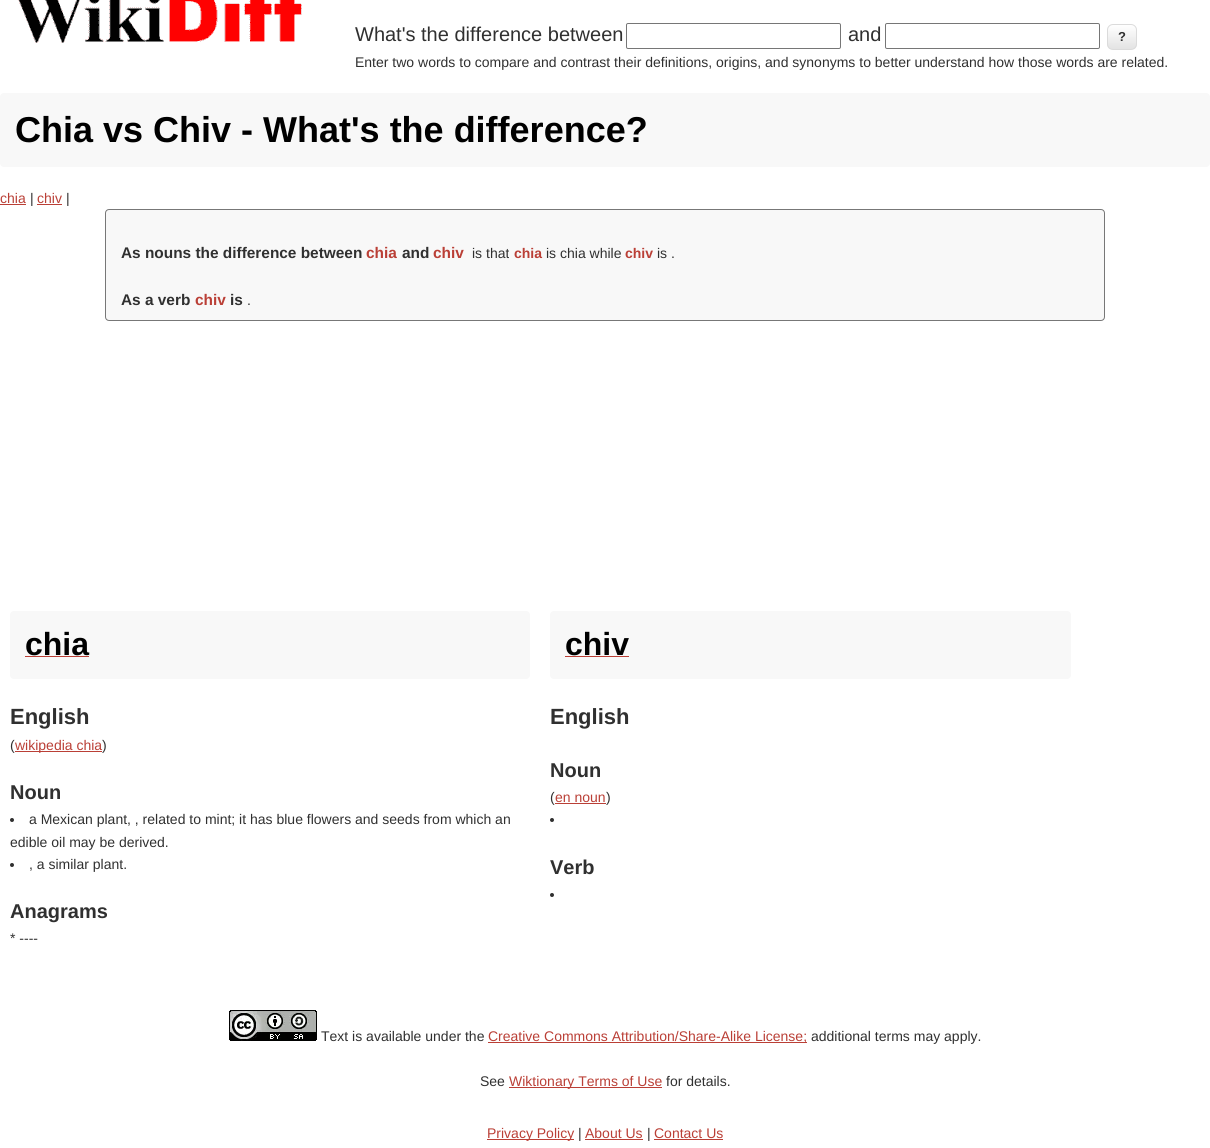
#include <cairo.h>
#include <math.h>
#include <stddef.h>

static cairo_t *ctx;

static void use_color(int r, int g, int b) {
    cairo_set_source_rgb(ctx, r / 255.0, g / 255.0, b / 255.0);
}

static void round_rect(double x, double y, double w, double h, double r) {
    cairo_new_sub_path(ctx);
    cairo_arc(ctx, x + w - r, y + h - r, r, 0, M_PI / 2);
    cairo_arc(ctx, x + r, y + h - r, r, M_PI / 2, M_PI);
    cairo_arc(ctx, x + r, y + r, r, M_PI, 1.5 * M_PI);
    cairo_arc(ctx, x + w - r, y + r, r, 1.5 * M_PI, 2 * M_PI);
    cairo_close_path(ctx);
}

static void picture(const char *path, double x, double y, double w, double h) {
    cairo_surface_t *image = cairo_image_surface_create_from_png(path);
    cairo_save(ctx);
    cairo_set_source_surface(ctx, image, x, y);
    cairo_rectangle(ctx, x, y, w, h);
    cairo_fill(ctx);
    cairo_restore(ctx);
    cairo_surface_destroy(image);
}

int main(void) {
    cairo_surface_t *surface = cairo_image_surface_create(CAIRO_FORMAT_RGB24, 1210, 1148);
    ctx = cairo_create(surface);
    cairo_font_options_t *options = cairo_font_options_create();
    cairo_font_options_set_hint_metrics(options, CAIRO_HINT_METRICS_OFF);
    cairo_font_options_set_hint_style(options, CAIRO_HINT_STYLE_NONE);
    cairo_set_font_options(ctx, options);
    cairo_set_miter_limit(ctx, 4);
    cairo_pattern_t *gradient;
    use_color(255, 255, 255);
    cairo_paint(ctx);
    picture("img1.png", 18, 0, 284, 43);
    cairo_select_font_face(ctx, "Liberation Sans", CAIRO_FONT_SLANT_NORMAL, CAIRO_FONT_WEIGHT_NORMAL);
    cairo_set_font_size(ctx, 20);
    use_color(48, 48, 48);
    cairo_move_to(ctx, 355, 41);
    cairo_show_text(ctx, "What's the difference between");
    round_rect(626.5, 23.5, 214, 25, 1.5);
    use_color(118, 118, 118);
    cairo_set_line_width(ctx, 1);
    cairo_stroke(ctx);
    use_color(48, 48, 48);
    cairo_move_to(ctx, 848, 41);
    cairo_show_text(ctx, "and");
    round_rect(885.5, 23.5, 214, 25, 1.5);
    use_color(118, 118, 118);
    cairo_stroke(ctx);
    cairo_save(ctx);
    round_rect(1107, 24, 30, 26, 6);
    cairo_clip(ctx);
    gradient = cairo_pattern_create_linear(1122, 25, 1122, 49);
    cairo_pattern_add_color_stop_rgba(gradient, 0, 1, 1, 1, 1);
    cairo_pattern_add_color_stop_rgba(gradient, 1, 0.89, 0.89, 0.89, 1);
    cairo_set_source(ctx, gradient);
    cairo_pattern_destroy(gradient);
    cairo_rectangle(ctx, 1107, 25, 30, 24);
    cairo_fill(ctx);
    cairo_restore(ctx);
    round_rect(1107.5, 24.5, 29, 25, 5.5);
    use_color(219, 219, 219);
    cairo_stroke(ctx);
    cairo_select_font_face(ctx, "Liberation Sans", CAIRO_FONT_SLANT_NORMAL, CAIRO_FONT_WEIGHT_BOLD);
    cairo_set_font_size(ctx, 13);
    use_color(48, 48, 48);
    cairo_move_to(ctx, 1118, 41);
    cairo_show_text(ctx, "?");
    cairo_select_font_face(ctx, "Liberation Sans", CAIRO_FONT_SLANT_NORMAL, CAIRO_FONT_WEIGHT_NORMAL);
    cairo_set_font_size(ctx, 14);
    cairo_move_to(ctx, 355, 67);
    cairo_show_text(ctx, "Enter two words to compare and contrast their definitions, origins, and synonyms to better understand how those words are related.");
    use_color(248, 248, 248);
    round_rect(0, 93, 1210, 74, 4);
    cairo_fill(ctx);
    cairo_select_font_face(ctx, "Liberation Sans", CAIRO_FONT_SLANT_NORMAL, CAIRO_FONT_WEIGHT_BOLD);
    cairo_set_font_size(ctx, 36);
    use_color(0, 0, 0);
    cairo_move_to(ctx, 15, 142);
    cairo_show_text(ctx, "Chia vs Chiv - What's the difference?");
    cairo_select_font_face(ctx, "Liberation Sans", CAIRO_FONT_SLANT_NORMAL, CAIRO_FONT_WEIGHT_NORMAL);
    cairo_set_font_size(ctx, 14);
    use_color(186, 63, 54);
    cairo_move_to(ctx, 0, 203);
    cairo_show_text(ctx, "chia");
    cairo_rectangle(ctx, 0, 204, 26, 1);
    cairo_fill(ctx);
    use_color(48, 48, 48);
    cairo_move_to(ctx, 30, 203);
    cairo_show_text(ctx, "|");
    use_color(186, 63, 54);
    cairo_move_to(ctx, 37, 203);
    cairo_show_text(ctx, "chiv");
    cairo_rectangle(ctx, 37, 204, 25, 1);
    cairo_fill(ctx);
    use_color(48, 48, 48);
    cairo_move_to(ctx, 66, 203);
    cairo_show_text(ctx, "|");
    use_color(248, 248, 248);
    round_rect(105.5, 209.5, 999, 111, 3.5);
    cairo_fill_preserve(ctx);
    use_color(119, 119, 119);
    cairo_stroke(ctx);
    cairo_select_font_face(ctx, "Liberation Sans", CAIRO_FONT_SLANT_NORMAL, CAIRO_FONT_WEIGHT_BOLD);
    cairo_set_font_size(ctx, 15.4);
    use_color(48, 48, 48);
    cairo_move_to(ctx, 121, 258);
    cairo_show_text(ctx, "As nouns the difference between");
    use_color(186, 63, 54);
    cairo_move_to(ctx, 366, 258);
    cairo_show_text(ctx, "chia");
    use_color(48, 48, 48);
    cairo_move_to(ctx, 402, 258);
    cairo_show_text(ctx, "and");
    use_color(186, 63, 54);
    cairo_move_to(ctx, 433, 258);
    cairo_show_text(ctx, "chiv");
    cairo_select_font_face(ctx, "Liberation Sans", CAIRO_FONT_SLANT_NORMAL, CAIRO_FONT_WEIGHT_NORMAL);
    cairo_set_font_size(ctx, 14);
    use_color(48, 48, 48);
    cairo_move_to(ctx, 472, 258);
    cairo_show_text(ctx, "is that");
    cairo_select_font_face(ctx, "Liberation Sans", CAIRO_FONT_SLANT_NORMAL, CAIRO_FONT_WEIGHT_BOLD);
    use_color(186, 63, 54);
    cairo_move_to(ctx, 514, 258);
    cairo_show_text(ctx, "chia");
    cairo_select_font_face(ctx, "Liberation Sans", CAIRO_FONT_SLANT_NORMAL, CAIRO_FONT_WEIGHT_NORMAL);
    use_color(48, 48, 48);
    cairo_move_to(ctx, 546, 258);
    cairo_show_text(ctx, "is chia while");
    cairo_select_font_face(ctx, "Liberation Sans", CAIRO_FONT_SLANT_NORMAL, CAIRO_FONT_WEIGHT_BOLD);
    use_color(186, 63, 54);
    cairo_move_to(ctx, 625, 258);
    cairo_show_text(ctx, "chiv");
    cairo_select_font_face(ctx, "Liberation Sans", CAIRO_FONT_SLANT_NORMAL, CAIRO_FONT_WEIGHT_NORMAL);
    use_color(48, 48, 48);
    cairo_move_to(ctx, 657, 258);
    cairo_show_text(ctx, "is .");
    cairo_select_font_face(ctx, "Liberation Sans", CAIRO_FONT_SLANT_NORMAL, CAIRO_FONT_WEIGHT_BOLD);
    cairo_set_font_size(ctx, 15.4);
    cairo_move_to(ctx, 121, 305);
    cairo_show_text(ctx, "As a verb");
    use_color(186, 63, 54);
    cairo_move_to(ctx, 195, 305);
    cairo_show_text(ctx, "chiv");
    use_color(48, 48, 48);
    cairo_move_to(ctx, 230, 305);
    cairo_show_text(ctx, "is");
    cairo_select_font_face(ctx, "Liberation Sans", CAIRO_FONT_SLANT_NORMAL, CAIRO_FONT_WEIGHT_NORMAL);
    cairo_set_font_size(ctx, 14);
    cairo_move_to(ctx, 247, 305);
    cairo_show_text(ctx, ".");
    use_color(248, 248, 248);
    round_rect(10, 611, 520, 68, 4);
    cairo_fill(ctx);
    cairo_select_font_face(ctx, "Liberation Sans", CAIRO_FONT_SLANT_NORMAL, CAIRO_FONT_WEIGHT_BOLD);
    cairo_set_font_size(ctx, 32);
    use_color(0, 0, 0);
    cairo_move_to(ctx, 25, 655);
    cairo_show_text(ctx, "chia");
    use_color(186, 63, 54);
    cairo_rectangle(ctx, 25, 656, 64, 1);
    cairo_fill(ctx);
    cairo_set_font_size(ctx, 22);
    use_color(48, 48, 48);
    cairo_move_to(ctx, 10, 724);
    cairo_show_text(ctx, "English");
    cairo_select_font_face(ctx, "Liberation Sans", CAIRO_FONT_SLANT_NORMAL, CAIRO_FONT_WEIGHT_NORMAL);
    cairo_set_font_size(ctx, 14);
    cairo_move_to(ctx, 10, 750);
    cairo_show_text(ctx, "(");
    use_color(186, 63, 54);
    cairo_rectangle(ctx, 15, 751, 87, 1);
    cairo_fill(ctx);
    cairo_move_to(ctx, 15, 750);
    cairo_show_text(ctx, "wikipedia chia");
    use_color(48, 48, 48);
    cairo_move_to(ctx, 102, 750);
    cairo_show_text(ctx, ")");
    cairo_select_font_face(ctx, "Liberation Sans", CAIRO_FONT_SLANT_NORMAL, CAIRO_FONT_WEIGHT_BOLD);
    cairo_set_font_size(ctx, 20);
    cairo_move_to(ctx, 10, 799);
    cairo_show_text(ctx, "Noun");
    cairo_new_path(ctx);
    cairo_arc(ctx, 12, 820, 2, 0, 2 * M_PI);
    cairo_fill(ctx);
    cairo_select_font_face(ctx, "Liberation Sans", CAIRO_FONT_SLANT_NORMAL, CAIRO_FONT_WEIGHT_NORMAL);
    cairo_set_font_size(ctx, 14);
    cairo_move_to(ctx, 29, 824);
    cairo_show_text(ctx, "a Mexican plant, , related to mint; it has blue flowers and seeds from which an");
    cairo_move_to(ctx, 10, 847);
    cairo_show_text(ctx, "edible oil may be derived.");
    cairo_new_path(ctx);
    cairo_arc(ctx, 12, 865, 2, 0, 2 * M_PI);
    cairo_fill(ctx);
    cairo_move_to(ctx, 29, 869);
    cairo_show_text(ctx, ", a similar plant.");
    cairo_select_font_face(ctx, "Liberation Sans", CAIRO_FONT_SLANT_NORMAL, CAIRO_FONT_WEIGHT_BOLD);
    cairo_set_font_size(ctx, 20);
    cairo_move_to(ctx, 10, 918);
    cairo_show_text(ctx, "Anagrams");
    cairo_select_font_face(ctx, "Liberation Sans", CAIRO_FONT_SLANT_NORMAL, CAIRO_FONT_WEIGHT_NORMAL);
    cairo_set_font_size(ctx, 14);
    cairo_move_to(ctx, 10, 943);
    cairo_show_text(ctx, "* ----");
    use_color(248, 248, 248);
    round_rect(550, 611, 521, 68, 4);
    cairo_fill(ctx);
    cairo_select_font_face(ctx, "Liberation Sans", CAIRO_FONT_SLANT_NORMAL, CAIRO_FONT_WEIGHT_BOLD);
    cairo_set_font_size(ctx, 32);
    use_color(0, 0, 0);
    cairo_move_to(ctx, 565, 655);
    cairo_show_text(ctx, "chiv");
    use_color(186, 63, 54);
    cairo_rectangle(ctx, 565, 656, 64, 1);
    cairo_fill(ctx);
    cairo_set_font_size(ctx, 22);
    use_color(48, 48, 48);
    cairo_move_to(ctx, 550, 724);
    cairo_show_text(ctx, "English");
    cairo_set_font_size(ctx, 20);
    cairo_move_to(ctx, 550, 777);
    cairo_show_text(ctx, "Noun");
    cairo_select_font_face(ctx, "Liberation Sans", CAIRO_FONT_SLANT_NORMAL, CAIRO_FONT_WEIGHT_NORMAL);
    cairo_set_font_size(ctx, 14);
    cairo_move_to(ctx, 550, 802);
    cairo_show_text(ctx, "(");
    use_color(186, 63, 54);
    cairo_move_to(ctx, 555, 802);
    cairo_show_text(ctx, "en noun");
    cairo_rectangle(ctx, 555, 803, 51, 1);
    cairo_fill(ctx);
    use_color(48, 48, 48);
    cairo_move_to(ctx, 606, 802);
    cairo_show_text(ctx, ")");
    cairo_new_path(ctx);
    cairo_arc(ctx, 552, 820, 2, 0, 2 * M_PI);
    cairo_fill(ctx);
    cairo_select_font_face(ctx, "Liberation Sans", CAIRO_FONT_SLANT_NORMAL, CAIRO_FONT_WEIGHT_BOLD);
    cairo_set_font_size(ctx, 20);
    cairo_move_to(ctx, 550, 874);
    cairo_show_text(ctx, "Verb");
    cairo_new_path(ctx);
    cairo_arc(ctx, 552, 895, 2, 0, 2 * M_PI);
    cairo_fill(ctx);
    picture("img2.png", 229, 1010, 88, 31);
    cairo_select_font_face(ctx, "Liberation Sans", CAIRO_FONT_SLANT_NORMAL, CAIRO_FONT_WEIGHT_NORMAL);
    cairo_set_font_size(ctx, 14);
    cairo_move_to(ctx, 321, 1041);
    cairo_show_text(ctx, "Text is available under the");
    use_color(186, 63, 54);
    cairo_rectangle(ctx, 488, 1042, 319, 1);
    cairo_fill(ctx);
    cairo_move_to(ctx, 488, 1041);
    cairo_show_text(ctx, "Creative Commons Attribution/Share-Alike License;");
    use_color(48, 48, 48);
    cairo_move_to(ctx, 811, 1041);
    cairo_show_text(ctx, "additional terms may apply.");
    cairo_move_to(ctx, 480, 1086);
    cairo_show_text(ctx, "See");
    use_color(186, 63, 54);
    cairo_rectangle(ctx, 509, 1087, 153, 1);
    cairo_fill(ctx);
    cairo_move_to(ctx, 509, 1086);
    cairo_show_text(ctx, "Wiktionary Terms of Use");
    use_color(48, 48, 48);
    cairo_move_to(ctx, 666, 1086);
    cairo_show_text(ctx, "for details.");
    use_color(186, 63, 54);
    cairo_rectangle(ctx, 487, 1139, 87, 1);
    cairo_fill(ctx);
    cairo_move_to(ctx, 487, 1138);
    cairo_show_text(ctx, "Privacy Policy");
    use_color(48, 48, 48);
    cairo_move_to(ctx, 578, 1138);
    cairo_show_text(ctx, "|");
    use_color(186, 63, 54);
    cairo_move_to(ctx, 585, 1138);
    cairo_show_text(ctx, "About Us");
    cairo_rectangle(ctx, 585, 1139, 58, 1);
    cairo_fill(ctx);
    use_color(48, 48, 48);
    cairo_move_to(ctx, 647, 1138);
    cairo_show_text(ctx, "|");
    use_color(186, 63, 54);
    cairo_move_to(ctx, 654, 1138);
    cairo_show_text(ctx, "Contact Us");
    cairo_rectangle(ctx, 654, 1139, 69, 1);
    cairo_fill(ctx);
    cairo_surface_write_to_png(surface, "result.png");
    cairo_font_options_destroy(options);
    cairo_destroy(ctx);
    cairo_surface_destroy(surface);
    return 0;
}
